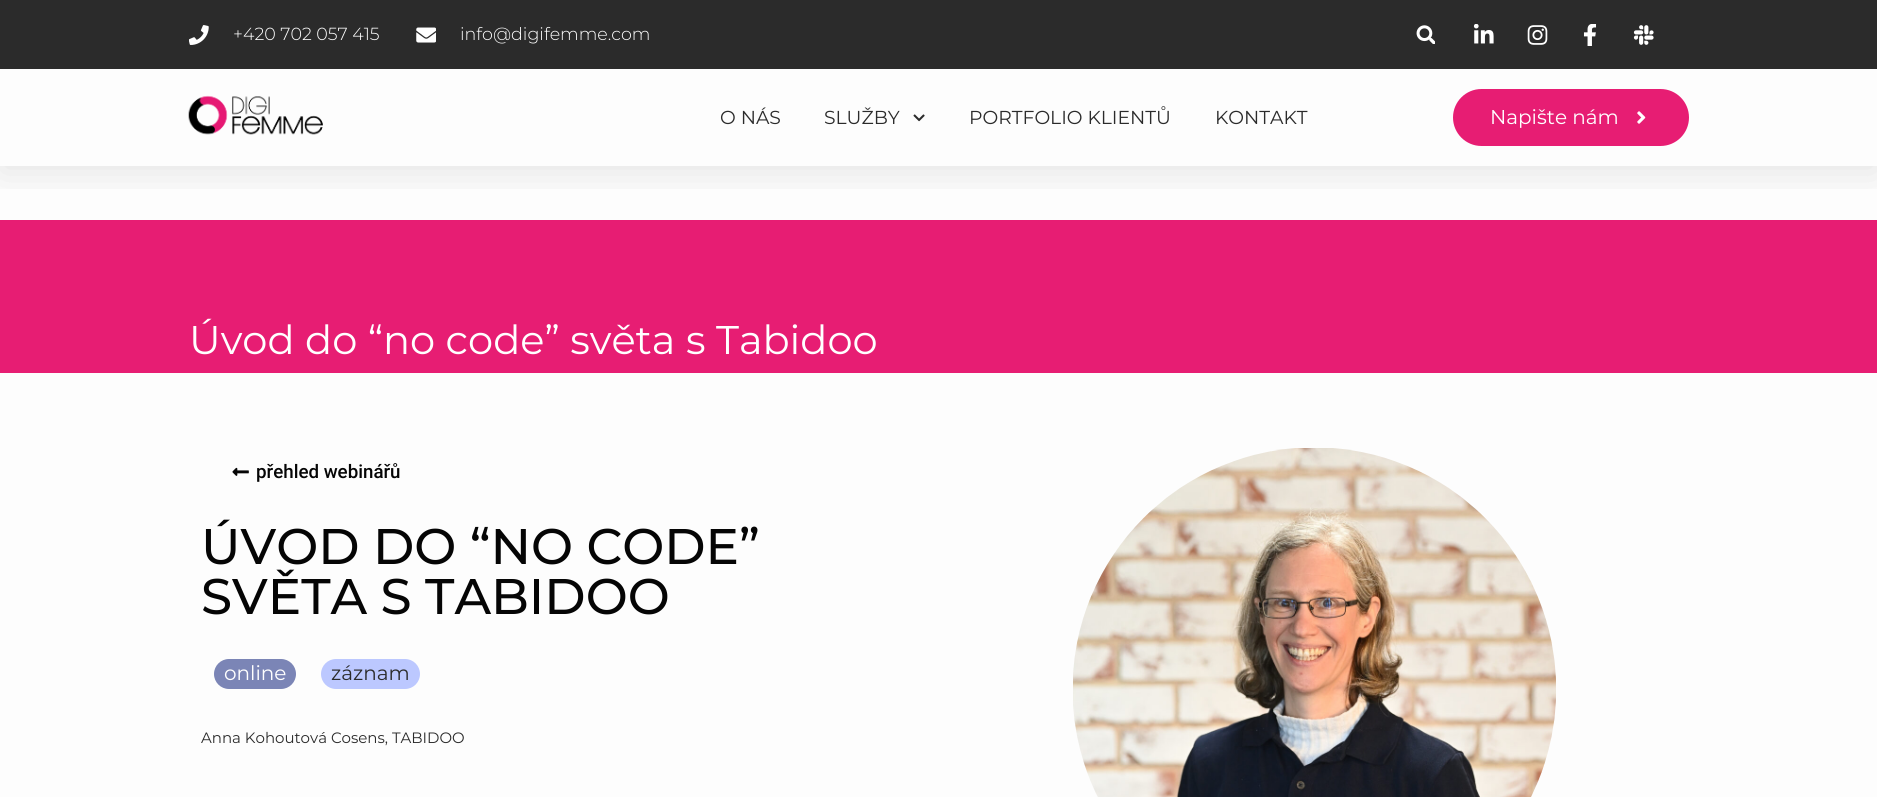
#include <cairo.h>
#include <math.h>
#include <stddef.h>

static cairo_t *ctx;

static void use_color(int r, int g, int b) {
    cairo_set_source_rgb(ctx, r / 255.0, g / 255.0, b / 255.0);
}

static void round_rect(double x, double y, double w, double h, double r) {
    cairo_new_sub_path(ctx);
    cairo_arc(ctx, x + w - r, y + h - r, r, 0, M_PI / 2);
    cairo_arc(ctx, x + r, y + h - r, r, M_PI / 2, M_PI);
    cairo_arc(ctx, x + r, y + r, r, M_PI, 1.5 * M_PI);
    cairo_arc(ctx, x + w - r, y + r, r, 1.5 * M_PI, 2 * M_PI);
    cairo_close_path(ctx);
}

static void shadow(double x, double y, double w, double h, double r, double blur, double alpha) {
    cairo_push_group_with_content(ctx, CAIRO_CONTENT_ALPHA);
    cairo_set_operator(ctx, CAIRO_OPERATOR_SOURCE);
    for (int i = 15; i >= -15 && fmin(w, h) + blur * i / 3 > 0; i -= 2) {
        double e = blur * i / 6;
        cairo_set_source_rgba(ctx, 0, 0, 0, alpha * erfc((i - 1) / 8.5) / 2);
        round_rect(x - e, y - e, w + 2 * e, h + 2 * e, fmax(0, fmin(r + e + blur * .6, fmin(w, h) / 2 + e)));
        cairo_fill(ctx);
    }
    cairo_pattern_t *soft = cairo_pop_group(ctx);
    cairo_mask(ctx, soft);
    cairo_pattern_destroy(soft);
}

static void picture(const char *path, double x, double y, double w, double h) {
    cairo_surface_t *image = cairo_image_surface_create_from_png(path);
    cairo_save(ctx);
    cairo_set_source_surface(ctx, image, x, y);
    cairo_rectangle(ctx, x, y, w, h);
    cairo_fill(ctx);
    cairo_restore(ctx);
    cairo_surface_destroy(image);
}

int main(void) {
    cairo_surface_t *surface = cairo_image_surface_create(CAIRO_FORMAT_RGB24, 1877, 797);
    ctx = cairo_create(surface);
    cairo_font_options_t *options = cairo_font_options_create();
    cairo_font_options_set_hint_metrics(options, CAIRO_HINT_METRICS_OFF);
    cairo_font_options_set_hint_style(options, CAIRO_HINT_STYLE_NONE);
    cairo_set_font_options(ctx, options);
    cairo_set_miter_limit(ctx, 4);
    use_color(253, 253, 253);
    cairo_paint(ctx);
    use_color(231, 29, 115);
    cairo_rectangle(ctx, 0, 220, 1877, 153);
    cairo_fill(ctx);
    cairo_save(ctx);
    cairo_rectangle(ctx, 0, 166, 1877, 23);
    cairo_clip(ctx);
    use_color(0, 0, 0);
    shadow(0, 6, 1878, 167, 0, 19, 0.1);
    cairo_restore(ctx);
    use_color(43, 43, 43);
    cairo_rectangle(ctx, 0, 0, 1877, 69);
    cairo_fill(ctx);
    picture("img1.png", 189, 25, 20, 20);
    cairo_select_font_face(ctx, "Montserrat Light", CAIRO_FONT_SLANT_NORMAL, CAIRO_FONT_WEIGHT_NORMAL);
    cairo_set_font_size(ctx, 17.5);
    use_color(255, 255, 255);
    cairo_move_to(ctx, 233, 40);
    cairo_show_text(ctx, "+420 702 057 415");
    picture("img2.png", 416, 27, 20, 16);
    cairo_move_to(ctx, 460, 40);
    cairo_show_text(ctx, "info@digifemme.com");
    picture("img3.png", 1416, 25, 19, 19);
    picture("img4.png", 1473, 24, 21, 20);
    picture("img5.png", 1527, 25, 21, 20);
    picture("img6.png", 1583, 24, 14, 22);
    picture("img7.png", 1633, 25, 21, 20);
    picture("img8.png", 188, 95, 135, 40);
    cairo_select_font_face(ctx, "Montserrat", CAIRO_FONT_SLANT_NORMAL, CAIRO_FONT_WEIGHT_NORMAL);
    cairo_set_font_size(ctx, 18.75);
    use_color(43, 43, 43);
    cairo_move_to(ctx, 720, 124);
    cairo_show_text(ctx, "O NÁS");
    cairo_move_to(ctx, 824, 124);
    cairo_show_text(ctx, "SLUŽBY");
    picture("img9.png", 913, 114, 12, 8);
    cairo_move_to(ctx, 969, 124);
    cairo_show_text(ctx, "PORTFOLIO KLIENTŮ");
    cairo_move_to(ctx, 1215, 124);
    cairo_show_text(ctx, "KONTAKT");
    use_color(231, 29, 115);
    round_rect(1453, 89, 236, 57, 28.5);
    cairo_fill(ctx);
    cairo_set_font_size(ctx, 20);
    use_color(255, 255, 255);
    cairo_move_to(ctx, 1490, 124);
    cairo_show_text(ctx, "Napište nám");
    picture("img10.png", 1637, 111, 9, 13);
    cairo_set_font_size(ctx, 40);
    cairo_move_to(ctx, 189, 354);
    cairo_show_text(ctx, "Úvod do “no code” světa s Tabidoo");
    picture("img11.png", 232, 467, 17, 9);
    cairo_select_font_face(ctx, "Roboto Medium", CAIRO_FONT_SLANT_NORMAL, CAIRO_FONT_WEIGHT_NORMAL);
    cairo_set_font_size(ctx, 18.75);
    use_color(5, 5, 5);
    cairo_move_to(ctx, 256, 478);
    cairo_show_text(ctx, "přehled webinářů");
    cairo_select_font_face(ctx, "Montserrat Medium", CAIRO_FONT_SLANT_NORMAL, CAIRO_FONT_WEIGHT_NORMAL);
    cairo_set_font_size(ctx, 50);
    cairo_move_to(ctx, 201, 564);
    cairo_show_text(ctx, "ÚVOD DO “NO CODE”");
    cairo_move_to(ctx, 201, 614);
    cairo_show_text(ctx, "SVĚTA S TABIDOO");
    use_color(123, 133, 182);
    round_rect(214, 659, 82, 30, 15);
    cairo_fill(ctx);
    cairo_select_font_face(ctx, "Montserrat", CAIRO_FONT_SLANT_NORMAL, CAIRO_FONT_WEIGHT_NORMAL);
    cairo_set_font_size(ctx, 20);
    use_color(255, 255, 255);
    cairo_move_to(ctx, 224, 680);
    cairo_show_text(ctx, "online");
    use_color(188, 200, 255);
    round_rect(321, 659, 99, 30, 15);
    cairo_fill(ctx);
    use_color(43, 43, 43);
    cairo_move_to(ctx, 331, 680);
    cairo_show_text(ctx, "záznam");
    cairo_set_font_size(ctx, 15);
    cairo_move_to(ctx, 201, 743);
    cairo_show_text(ctx, "Anna Kohoutová Cosens, TABIDOO");
    picture("img12.png", 1073, 448, 483, 349);
    cairo_surface_write_to_png(surface, "result.png");
    cairo_font_options_destroy(options);
    cairo_destroy(ctx);
    cairo_surface_destroy(surface);
    return 0;
}
